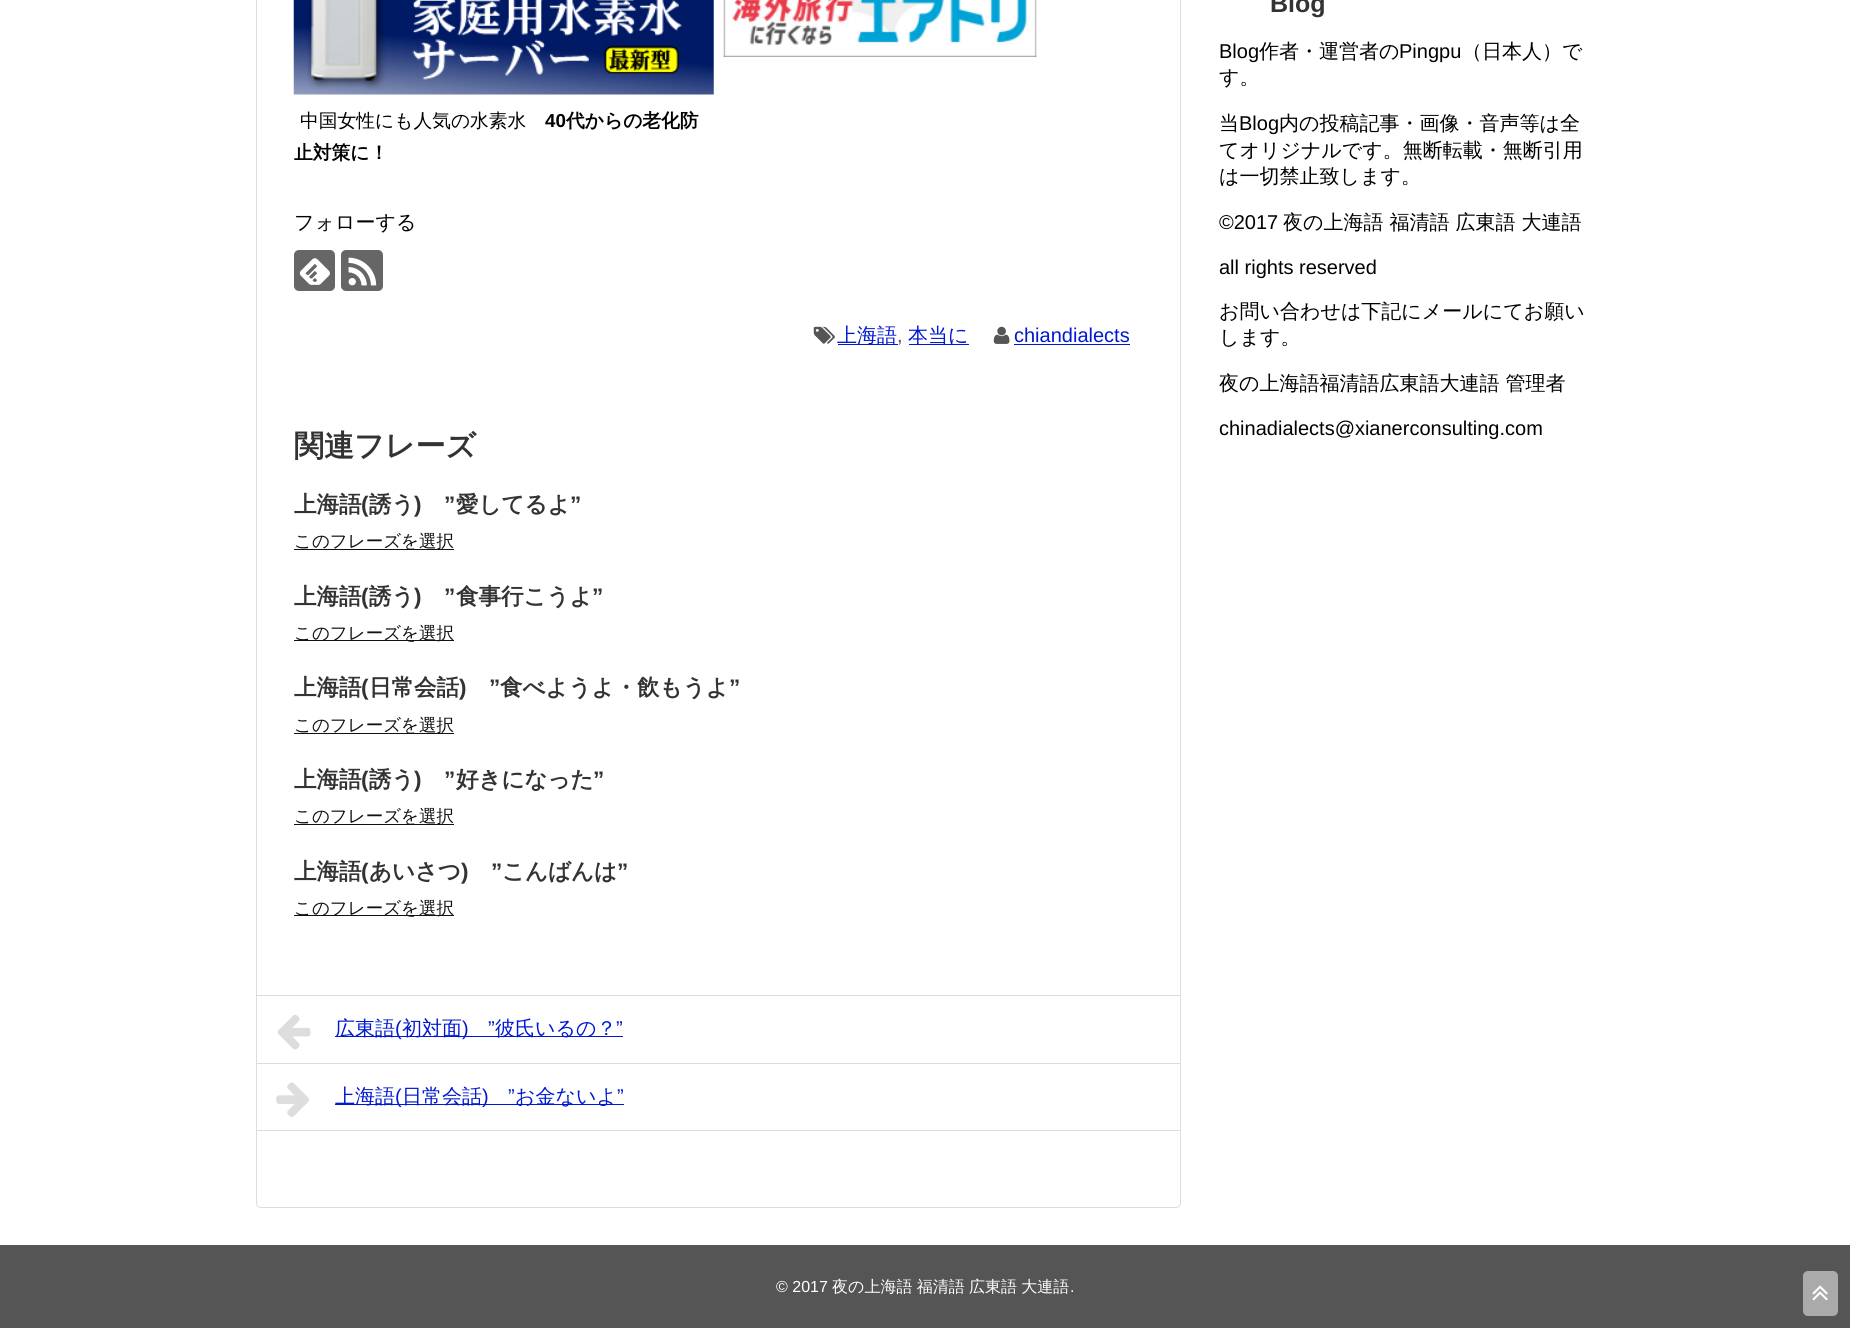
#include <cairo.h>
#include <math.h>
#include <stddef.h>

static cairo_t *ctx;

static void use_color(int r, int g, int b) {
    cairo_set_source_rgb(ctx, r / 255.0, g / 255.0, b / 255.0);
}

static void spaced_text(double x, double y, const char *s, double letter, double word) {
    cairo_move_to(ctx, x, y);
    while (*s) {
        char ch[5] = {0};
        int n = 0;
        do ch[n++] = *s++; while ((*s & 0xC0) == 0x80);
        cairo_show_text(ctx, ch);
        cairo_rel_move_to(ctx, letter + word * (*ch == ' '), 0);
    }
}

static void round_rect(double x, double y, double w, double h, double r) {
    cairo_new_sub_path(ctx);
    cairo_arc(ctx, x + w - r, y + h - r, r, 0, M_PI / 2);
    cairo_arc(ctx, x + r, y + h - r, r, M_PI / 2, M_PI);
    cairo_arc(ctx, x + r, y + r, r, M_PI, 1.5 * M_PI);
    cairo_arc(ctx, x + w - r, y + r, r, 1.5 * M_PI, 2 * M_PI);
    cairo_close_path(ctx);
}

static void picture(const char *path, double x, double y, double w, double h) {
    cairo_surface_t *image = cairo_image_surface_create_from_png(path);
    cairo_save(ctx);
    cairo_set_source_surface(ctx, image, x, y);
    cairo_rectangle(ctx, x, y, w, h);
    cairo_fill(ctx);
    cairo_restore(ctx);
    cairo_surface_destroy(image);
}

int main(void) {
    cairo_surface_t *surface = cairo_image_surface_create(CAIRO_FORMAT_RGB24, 1850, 1328);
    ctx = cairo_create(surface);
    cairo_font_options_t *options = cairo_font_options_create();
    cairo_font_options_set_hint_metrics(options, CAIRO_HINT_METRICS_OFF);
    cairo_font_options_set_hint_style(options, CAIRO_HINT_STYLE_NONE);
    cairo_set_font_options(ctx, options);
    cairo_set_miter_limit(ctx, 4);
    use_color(255, 255, 255);
    cairo_paint(ctx);
    round_rect(256.5, -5.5, 924, 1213, 4.5);
    use_color(221, 221, 221);
    cairo_set_line_width(ctx, 1);
    cairo_stroke(ctx);
    picture("img1.png", 723, 0, 314, 57);
    picture("img2.png", 293, 0, 421, 95);
    cairo_select_font_face(ctx, "WenQuanYi Zen Hei Medium", CAIRO_FONT_SLANT_NORMAL, CAIRO_FONT_WEIGHT_NORMAL);
    cairo_set_font_size(ctx, 18.75);
    use_color(0, 0, 0);
    cairo_move_to(ctx, 300, 127);
    cairo_show_text(ctx, "中国女性にも人気の水素水");
    cairo_select_font_face(ctx, "Liberation Sans", CAIRO_FONT_SLANT_NORMAL, CAIRO_FONT_WEIGHT_BOLD);
    cairo_move_to(ctx, 545, 127);
    cairo_show_text(ctx, "40");
    cairo_select_font_face(ctx, "WenQuanYi Zen Hei", CAIRO_FONT_SLANT_NORMAL, CAIRO_FONT_WEIGHT_BOLD);
    cairo_move_to(ctx, 566, 127);
    cairo_show_text(ctx, "代からの老化防");
    cairo_move_to(ctx, 294, 159);
    cairo_show_text(ctx, "止対策に！");
    cairo_select_font_face(ctx, "WenQuanYi Zen Hei Medium", CAIRO_FONT_SLANT_NORMAL, CAIRO_FONT_WEIGHT_NORMAL);
    cairo_set_font_size(ctx, 20);
    cairo_move_to(ctx, 294, 229);
    cairo_show_text(ctx, "フォローする");
    use_color(102, 102, 102);
    round_rect(294, 250, 41, 41, 5);
    cairo_fill(ctx);
    picture("img3.png", 299, 258, 31, 27);
    round_rect(341, 250, 42, 41, 5);
    cairo_fill(ctx);
    picture("img4.png", 348, 257, 29, 29);
    picture("img5.png", 813, 326, 22, 18);
    use_color(0, 24, 209);
    cairo_rectangle(ctx, 838, 344, 60, 1);
    cairo_fill(ctx);
    cairo_move_to(ctx, 837, 342);
    cairo_show_text(ctx, "上海語");
    cairo_select_font_face(ctx, "Liberation Sans", CAIRO_FONT_SLANT_NORMAL, CAIRO_FONT_WEIGHT_NORMAL);
    use_color(85, 85, 85);
    cairo_move_to(ctx, 897, 342);
    cairo_show_text(ctx, ",");
    use_color(0, 24, 209);
    cairo_rectangle(ctx, 909, 344, 60, 1);
    cairo_fill(ctx);
    cairo_select_font_face(ctx, "WenQuanYi Zen Hei Medium", CAIRO_FONT_SLANT_NORMAL, CAIRO_FONT_WEIGHT_NORMAL);
    cairo_move_to(ctx, 908, 342);
    cairo_show_text(ctx, "本当に");
    picture("img6.png", 993, 326, 17, 18);
    cairo_select_font_face(ctx, "Liberation Sans", CAIRO_FONT_SLANT_NORMAL, CAIRO_FONT_WEIGHT_NORMAL);
    cairo_move_to(ctx, 1014, 342);
    cairo_show_text(ctx, "chiandialects");
    cairo_rectangle(ctx, 1014, 344, 116, 1);
    cairo_fill(ctx);
    cairo_select_font_face(ctx, "WenQuanYi Zen Hei", CAIRO_FONT_SLANT_NORMAL, CAIRO_FONT_WEIGHT_BOLD);
    cairo_set_font_size(ctx, 30);
    use_color(51, 51, 51);
    cairo_move_to(ctx, 294, 456);
    cairo_show_text(ctx, "関連フレーズ");
    cairo_set_font_size(ctx, 22.5);
    cairo_move_to(ctx, 294, 512);
    cairo_show_text(ctx, "上海語");
    cairo_select_font_face(ctx, "Liberation Sans", CAIRO_FONT_SLANT_NORMAL, CAIRO_FONT_WEIGHT_BOLD);
    cairo_move_to(ctx, 361, 512);
    cairo_show_text(ctx, "(");
    cairo_select_font_face(ctx, "WenQuanYi Zen Hei", CAIRO_FONT_SLANT_NORMAL, CAIRO_FONT_WEIGHT_BOLD);
    cairo_move_to(ctx, 369, 512);
    cairo_show_text(ctx, "誘う");
    cairo_select_font_face(ctx, "Liberation Sans", CAIRO_FONT_SLANT_NORMAL, CAIRO_FONT_WEIGHT_BOLD);
    cairo_move_to(ctx, 414, 512);
    cairo_show_text(ctx, ")");
    cairo_move_to(ctx, 444, 512);
    cairo_show_text(ctx, "”");
    cairo_select_font_face(ctx, "WenQuanYi Zen Hei", CAIRO_FONT_SLANT_NORMAL, CAIRO_FONT_WEIGHT_BOLD);
    cairo_move_to(ctx, 456, 512);
    cairo_show_text(ctx, "愛してるよ");
    cairo_select_font_face(ctx, "Liberation Sans", CAIRO_FONT_SLANT_NORMAL, CAIRO_FONT_WEIGHT_BOLD);
    cairo_move_to(ctx, 570, 512);
    cairo_show_text(ctx, "”");
    use_color(17, 17, 17);
    cairo_rectangle(ctx, 294, 549, 160, 1);
    cairo_fill(ctx);
    cairo_select_font_face(ctx, "WenQuanYi Zen Hei Medium", CAIRO_FONT_SLANT_NORMAL, CAIRO_FONT_WEIGHT_NORMAL);
    cairo_set_font_size(ctx, 17.5);
    cairo_move_to(ctx, 294, 547);
    cairo_show_text(ctx, "このフレーズを選択");
    cairo_select_font_face(ctx, "WenQuanYi Zen Hei", CAIRO_FONT_SLANT_NORMAL, CAIRO_FONT_WEIGHT_BOLD);
    cairo_set_font_size(ctx, 22.5);
    use_color(51, 51, 51);
    cairo_move_to(ctx, 294, 604);
    cairo_show_text(ctx, "上海語");
    cairo_select_font_face(ctx, "Liberation Sans", CAIRO_FONT_SLANT_NORMAL, CAIRO_FONT_WEIGHT_BOLD);
    cairo_move_to(ctx, 361, 604);
    cairo_show_text(ctx, "(");
    cairo_select_font_face(ctx, "WenQuanYi Zen Hei", CAIRO_FONT_SLANT_NORMAL, CAIRO_FONT_WEIGHT_BOLD);
    cairo_move_to(ctx, 369, 604);
    cairo_show_text(ctx, "誘う");
    cairo_select_font_face(ctx, "Liberation Sans", CAIRO_FONT_SLANT_NORMAL, CAIRO_FONT_WEIGHT_BOLD);
    cairo_move_to(ctx, 414, 604);
    cairo_show_text(ctx, ")");
    cairo_move_to(ctx, 444, 604);
    cairo_show_text(ctx, "”");
    cairo_select_font_face(ctx, "WenQuanYi Zen Hei", CAIRO_FONT_SLANT_NORMAL, CAIRO_FONT_WEIGHT_BOLD);
    cairo_move_to(ctx, 456, 604);
    cairo_show_text(ctx, "食事行こうよ");
    cairo_select_font_face(ctx, "Liberation Sans", CAIRO_FONT_SLANT_NORMAL, CAIRO_FONT_WEIGHT_BOLD);
    cairo_move_to(ctx, 592, 604);
    cairo_show_text(ctx, "”");
    use_color(17, 17, 17);
    cairo_rectangle(ctx, 294, 640, 160, 1);
    cairo_fill(ctx);
    cairo_select_font_face(ctx, "WenQuanYi Zen Hei Medium", CAIRO_FONT_SLANT_NORMAL, CAIRO_FONT_WEIGHT_NORMAL);
    cairo_set_font_size(ctx, 17.5);
    cairo_move_to(ctx, 294, 639);
    cairo_show_text(ctx, "このフレーズを選択");
    cairo_select_font_face(ctx, "WenQuanYi Zen Hei", CAIRO_FONT_SLANT_NORMAL, CAIRO_FONT_WEIGHT_BOLD);
    cairo_set_font_size(ctx, 22.5);
    use_color(51, 51, 51);
    cairo_move_to(ctx, 294, 695);
    cairo_show_text(ctx, "上海語");
    cairo_select_font_face(ctx, "Liberation Sans", CAIRO_FONT_SLANT_NORMAL, CAIRO_FONT_WEIGHT_BOLD);
    cairo_move_to(ctx, 361, 695);
    cairo_show_text(ctx, "(");
    cairo_select_font_face(ctx, "WenQuanYi Zen Hei", CAIRO_FONT_SLANT_NORMAL, CAIRO_FONT_WEIGHT_BOLD);
    cairo_move_to(ctx, 369, 695);
    cairo_show_text(ctx, "日常会話");
    cairo_select_font_face(ctx, "Liberation Sans", CAIRO_FONT_SLANT_NORMAL, CAIRO_FONT_WEIGHT_BOLD);
    cairo_move_to(ctx, 459, 695);
    cairo_show_text(ctx, ")");
    cairo_move_to(ctx, 489, 695);
    cairo_show_text(ctx, "”");
    cairo_select_font_face(ctx, "WenQuanYi Zen Hei", CAIRO_FONT_SLANT_NORMAL, CAIRO_FONT_WEIGHT_BOLD);
    cairo_move_to(ctx, 500, 695);
    cairo_show_text(ctx, "食べようよ・飲もうよ");
    cairo_select_font_face(ctx, "Liberation Sans", CAIRO_FONT_SLANT_NORMAL, CAIRO_FONT_WEIGHT_BOLD);
    cairo_move_to(ctx, 729, 695);
    cairo_show_text(ctx, "”");
    use_color(17, 17, 17);
    cairo_rectangle(ctx, 294, 733, 160, 1);
    cairo_fill(ctx);
    cairo_select_font_face(ctx, "WenQuanYi Zen Hei Medium", CAIRO_FONT_SLANT_NORMAL, CAIRO_FONT_WEIGHT_NORMAL);
    cairo_set_font_size(ctx, 17.5);
    cairo_move_to(ctx, 294, 731);
    cairo_show_text(ctx, "このフレーズを選択");
    cairo_select_font_face(ctx, "WenQuanYi Zen Hei", CAIRO_FONT_SLANT_NORMAL, CAIRO_FONT_WEIGHT_BOLD);
    cairo_set_font_size(ctx, 22.5);
    use_color(51, 51, 51);
    cairo_move_to(ctx, 294, 787);
    cairo_show_text(ctx, "上海語");
    cairo_select_font_face(ctx, "Liberation Sans", CAIRO_FONT_SLANT_NORMAL, CAIRO_FONT_WEIGHT_BOLD);
    cairo_move_to(ctx, 361, 787);
    cairo_show_text(ctx, "(");
    cairo_select_font_face(ctx, "WenQuanYi Zen Hei", CAIRO_FONT_SLANT_NORMAL, CAIRO_FONT_WEIGHT_BOLD);
    cairo_move_to(ctx, 369, 787);
    cairo_show_text(ctx, "誘う");
    cairo_select_font_face(ctx, "Liberation Sans", CAIRO_FONT_SLANT_NORMAL, CAIRO_FONT_WEIGHT_BOLD);
    cairo_move_to(ctx, 414, 787);
    cairo_show_text(ctx, ")");
    cairo_move_to(ctx, 444, 787);
    cairo_show_text(ctx, "”");
    cairo_select_font_face(ctx, "WenQuanYi Zen Hei", CAIRO_FONT_SLANT_NORMAL, CAIRO_FONT_WEIGHT_BOLD);
    cairo_move_to(ctx, 456, 787);
    cairo_show_text(ctx, "好きになった");
    cairo_select_font_face(ctx, "Liberation Sans", CAIRO_FONT_SLANT_NORMAL, CAIRO_FONT_WEIGHT_BOLD);
    cairo_move_to(ctx, 593, 787);
    cairo_show_text(ctx, "”");
    use_color(17, 17, 17);
    cairo_rectangle(ctx, 294, 824, 160, 1);
    cairo_fill(ctx);
    cairo_select_font_face(ctx, "WenQuanYi Zen Hei Medium", CAIRO_FONT_SLANT_NORMAL, CAIRO_FONT_WEIGHT_NORMAL);
    cairo_set_font_size(ctx, 17.5);
    cairo_move_to(ctx, 294, 822);
    cairo_show_text(ctx, "このフレーズを選択");
    cairo_select_font_face(ctx, "WenQuanYi Zen Hei", CAIRO_FONT_SLANT_NORMAL, CAIRO_FONT_WEIGHT_BOLD);
    cairo_set_font_size(ctx, 22.5);
    use_color(51, 51, 51);
    cairo_move_to(ctx, 294, 879);
    cairo_show_text(ctx, "上海語");
    cairo_select_font_face(ctx, "Liberation Sans", CAIRO_FONT_SLANT_NORMAL, CAIRO_FONT_WEIGHT_BOLD);
    cairo_move_to(ctx, 361, 879);
    cairo_show_text(ctx, "(");
    cairo_select_font_face(ctx, "WenQuanYi Zen Hei", CAIRO_FONT_SLANT_NORMAL, CAIRO_FONT_WEIGHT_BOLD);
    cairo_move_to(ctx, 369, 879);
    cairo_show_text(ctx, "あいさつ");
    cairo_select_font_face(ctx, "Liberation Sans", CAIRO_FONT_SLANT_NORMAL, CAIRO_FONT_WEIGHT_BOLD);
    cairo_move_to(ctx, 461, 879);
    cairo_show_text(ctx, ")");
    cairo_move_to(ctx, 491, 879);
    cairo_show_text(ctx, "”");
    cairo_select_font_face(ctx, "WenQuanYi Zen Hei", CAIRO_FONT_SLANT_NORMAL, CAIRO_FONT_WEIGHT_BOLD);
    cairo_move_to(ctx, 502, 879);
    cairo_show_text(ctx, "こんばんは");
    cairo_select_font_face(ctx, "Liberation Sans", CAIRO_FONT_SLANT_NORMAL, CAIRO_FONT_WEIGHT_BOLD);
    cairo_move_to(ctx, 617, 879);
    cairo_show_text(ctx, "”");
    use_color(17, 17, 17);
    cairo_rectangle(ctx, 294, 915, 160, 1);
    cairo_fill(ctx);
    cairo_select_font_face(ctx, "WenQuanYi Zen Hei Medium", CAIRO_FONT_SLANT_NORMAL, CAIRO_FONT_WEIGHT_NORMAL);
    cairo_set_font_size(ctx, 17.5);
    cairo_move_to(ctx, 294, 914);
    cairo_show_text(ctx, "このフレーズを選択");
    use_color(221, 221, 221);
    cairo_rectangle(ctx, 256, 995, 925, 1);
    cairo_fill(ctx);
    cairo_rectangle(ctx, 256, 1063, 925, 1);
    cairo_fill(ctx);
    picture("img7.png", 277, 1014, 34, 36);
    use_color(0, 24, 209);
    cairo_rectangle(ctx, 335, 1036, 288, 1);
    cairo_fill(ctx);
    cairo_set_font_size(ctx, 20);
    cairo_move_to(ctx, 335, 1035);
    cairo_show_text(ctx, "広東語");
    cairo_select_font_face(ctx, "Liberation Sans", CAIRO_FONT_SLANT_NORMAL, CAIRO_FONT_WEIGHT_NORMAL);
    cairo_move_to(ctx, 395, 1035);
    cairo_show_text(ctx, "(");
    cairo_select_font_face(ctx, "WenQuanYi Zen Hei Medium", CAIRO_FONT_SLANT_NORMAL, CAIRO_FONT_WEIGHT_NORMAL);
    cairo_move_to(ctx, 402, 1035);
    cairo_show_text(ctx, "初対面");
    cairo_select_font_face(ctx, "Liberation Sans", CAIRO_FONT_SLANT_NORMAL, CAIRO_FONT_WEIGHT_NORMAL);
    cairo_move_to(ctx, 462, 1035);
    cairo_show_text(ctx, ")");
    cairo_move_to(ctx, 488, 1035);
    cairo_show_text(ctx, "”");
    cairo_select_font_face(ctx, "WenQuanYi Zen Hei Medium", CAIRO_FONT_SLANT_NORMAL, CAIRO_FONT_WEIGHT_NORMAL);
    cairo_move_to(ctx, 495, 1035);
    cairo_show_text(ctx, "彼氏いるの？");
    cairo_select_font_face(ctx, "Liberation Sans", CAIRO_FONT_SLANT_NORMAL, CAIRO_FONT_WEIGHT_NORMAL);
    cairo_move_to(ctx, 616, 1035);
    cairo_show_text(ctx, "”");
    use_color(221, 221, 221);
    cairo_rectangle(ctx, 256, 1130, 925, 1);
    cairo_fill(ctx);
    picture("img8.png", 276, 1082, 33, 35);
    use_color(0, 24, 209);
    cairo_rectangle(ctx, 335, 1104, 289, 1);
    cairo_fill(ctx);
    cairo_select_font_face(ctx, "WenQuanYi Zen Hei Medium", CAIRO_FONT_SLANT_NORMAL, CAIRO_FONT_WEIGHT_NORMAL);
    cairo_move_to(ctx, 335, 1103);
    cairo_show_text(ctx, "上海語");
    cairo_select_font_face(ctx, "Liberation Sans", CAIRO_FONT_SLANT_NORMAL, CAIRO_FONT_WEIGHT_NORMAL);
    cairo_move_to(ctx, 395, 1103);
    cairo_show_text(ctx, "(");
    cairo_select_font_face(ctx, "WenQuanYi Zen Hei Medium", CAIRO_FONT_SLANT_NORMAL, CAIRO_FONT_WEIGHT_NORMAL);
    cairo_move_to(ctx, 402, 1103);
    cairo_show_text(ctx, "日常会話");
    cairo_select_font_face(ctx, "Liberation Sans", CAIRO_FONT_SLANT_NORMAL, CAIRO_FONT_WEIGHT_NORMAL);
    cairo_move_to(ctx, 482, 1103);
    cairo_show_text(ctx, ")");
    cairo_move_to(ctx, 508, 1103);
    cairo_show_text(ctx, "”");
    cairo_select_font_face(ctx, "WenQuanYi Zen Hei Medium", CAIRO_FONT_SLANT_NORMAL, CAIRO_FONT_WEIGHT_NORMAL);
    cairo_move_to(ctx, 515, 1103);
    cairo_show_text(ctx, "お金ないよ");
    cairo_select_font_face(ctx, "Liberation Sans", CAIRO_FONT_SLANT_NORMAL, CAIRO_FONT_WEIGHT_NORMAL);
    cairo_move_to(ctx, 617, 1103);
    cairo_show_text(ctx, "”");
    cairo_select_font_face(ctx, "Liberation Sans", CAIRO_FONT_SLANT_NORMAL, CAIRO_FONT_WEIGHT_BOLD);
    cairo_set_font_size(ctx, 25);
    use_color(51, 51, 51);
    cairo_move_to(ctx, 1270, 12);
    cairo_show_text(ctx, "Blog");
    cairo_select_font_face(ctx, "Liberation Sans", CAIRO_FONT_SLANT_NORMAL, CAIRO_FONT_WEIGHT_NORMAL);
    cairo_set_font_size(ctx, 20);
    use_color(0, 0, 0);
    cairo_move_to(ctx, 1219, 58);
    cairo_show_text(ctx, "Blog");
    cairo_select_font_face(ctx, "WenQuanYi Zen Hei Medium", CAIRO_FONT_SLANT_NORMAL, CAIRO_FONT_WEIGHT_NORMAL);
    cairo_move_to(ctx, 1259, 58);
    cairo_show_text(ctx, "作者・運営者の");
    cairo_select_font_face(ctx, "Liberation Sans", CAIRO_FONT_SLANT_NORMAL, CAIRO_FONT_WEIGHT_NORMAL);
    cairo_move_to(ctx, 1399, 58);
    cairo_show_text(ctx, "Pingpu");
    cairo_select_font_face(ctx, "WenQuanYi Zen Hei Medium", CAIRO_FONT_SLANT_NORMAL, CAIRO_FONT_WEIGHT_NORMAL);
    cairo_move_to(ctx, 1462, 58);
    cairo_show_text(ctx, "（日本人）で");
    cairo_move_to(ctx, 1219, 84);
    cairo_show_text(ctx, "す。");
    cairo_move_to(ctx, 1219, 130);
    cairo_show_text(ctx, "当");
    cairo_select_font_face(ctx, "Liberation Sans", CAIRO_FONT_SLANT_NORMAL, CAIRO_FONT_WEIGHT_NORMAL);
    cairo_move_to(ctx, 1239, 130);
    cairo_show_text(ctx, "Blog");
    cairo_select_font_face(ctx, "WenQuanYi Zen Hei Medium", CAIRO_FONT_SLANT_NORMAL, CAIRO_FONT_WEIGHT_NORMAL);
    cairo_move_to(ctx, 1279, 130);
    cairo_show_text(ctx, "内の投稿記事・画像・音声等は全");
    cairo_move_to(ctx, 1219, 157);
    cairo_show_text(ctx, "てオリジナルです。無断転載・無断引用");
    cairo_move_to(ctx, 1219, 183);
    cairo_show_text(ctx, "は一切禁止致します。");
    cairo_select_font_face(ctx, "Liberation Sans", CAIRO_FONT_SLANT_NORMAL, CAIRO_FONT_WEIGHT_NORMAL);
    cairo_move_to(ctx, 1219, 229);
    cairo_show_text(ctx, "©2017");
    cairo_select_font_face(ctx, "WenQuanYi Zen Hei Medium", CAIRO_FONT_SLANT_NORMAL, CAIRO_FONT_WEIGHT_NORMAL);
    cairo_move_to(ctx, 1283, 229);
    cairo_show_text(ctx, "夜の上海語 福清語 広東語 大連語");
    cairo_select_font_face(ctx, "Liberation Sans", CAIRO_FONT_SLANT_NORMAL, CAIRO_FONT_WEIGHT_NORMAL);
    cairo_move_to(ctx, 1219, 274);
    cairo_show_text(ctx, "all rights reserved");
    cairo_select_font_face(ctx, "WenQuanYi Zen Hei Medium", CAIRO_FONT_SLANT_NORMAL, CAIRO_FONT_WEIGHT_NORMAL);
    cairo_move_to(ctx, 1219, 318);
    cairo_show_text(ctx, "お問い合わせは下記にメールにてお願い");
    cairo_move_to(ctx, 1219, 344);
    cairo_show_text(ctx, "します。");
    cairo_move_to(ctx, 1219, 390);
    cairo_show_text(ctx, "夜の上海語福清語広東語大連語 管理者");
    cairo_select_font_face(ctx, "Liberation Sans", CAIRO_FONT_SLANT_NORMAL, CAIRO_FONT_WEIGHT_NORMAL);
    cairo_move_to(ctx, 1219, 435);
    cairo_show_text(ctx, "chinadialects@xianerconsulting.com");
    use_color(85, 85, 85);
    cairo_rectangle(ctx, 0, 1245, 1850, 83);
    cairo_fill(ctx);
    cairo_set_font_size(ctx, 16);
    use_color(255, 255, 255);
    cairo_move_to(ctx, 776, 1292);
    cairo_show_text(ctx, "© 2017");
    cairo_select_font_face(ctx, "WenQuanYi Zen Hei Medium", CAIRO_FONT_SLANT_NORMAL, CAIRO_FONT_WEIGHT_NORMAL);
    spaced_text(832, 1292, "夜の上海語 福清語 広東語 大連語", 0, -0.5);
    cairo_select_font_face(ctx, "Liberation Sans", CAIRO_FONT_SLANT_NORMAL, CAIRO_FONT_WEIGHT_NORMAL);
    cairo_move_to(ctx, 1070, 1292);
    cairo_show_text(ctx, ".");
    use_color(170, 170, 170);
    round_rect(1803, 1271, 35, 45, 5);
    cairo_fill(ctx);
    picture("img9.png", 1812, 1285, 16, 16);
    cairo_surface_write_to_png(surface, "result.png");
    cairo_font_options_destroy(options);
    cairo_destroy(ctx);
    cairo_surface_destroy(surface);
    return 0;
}
